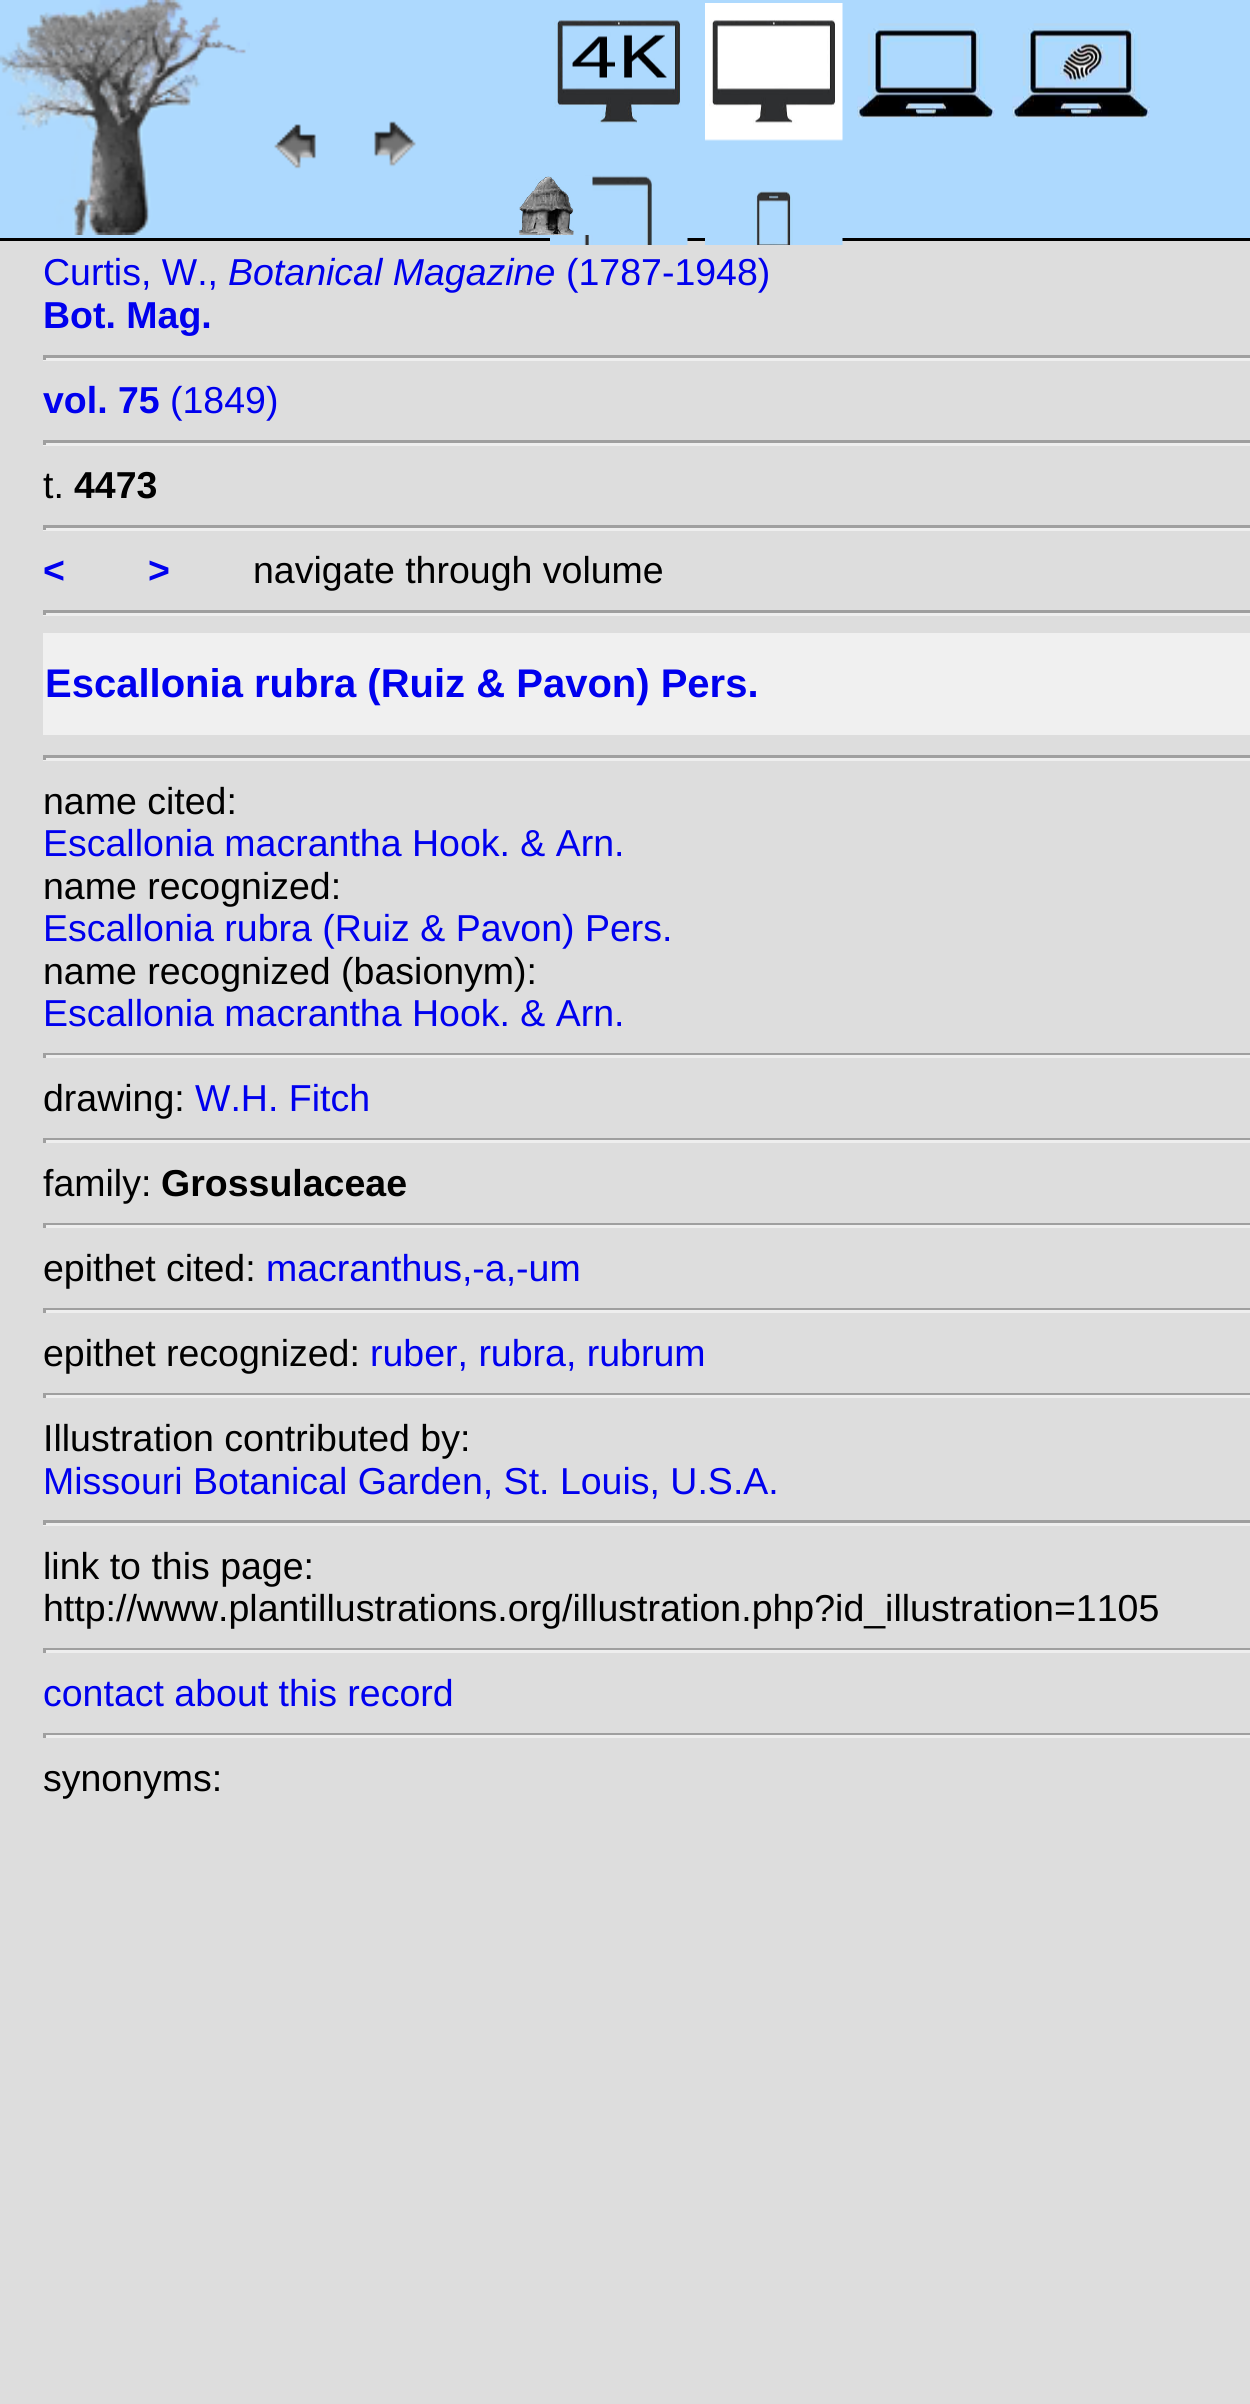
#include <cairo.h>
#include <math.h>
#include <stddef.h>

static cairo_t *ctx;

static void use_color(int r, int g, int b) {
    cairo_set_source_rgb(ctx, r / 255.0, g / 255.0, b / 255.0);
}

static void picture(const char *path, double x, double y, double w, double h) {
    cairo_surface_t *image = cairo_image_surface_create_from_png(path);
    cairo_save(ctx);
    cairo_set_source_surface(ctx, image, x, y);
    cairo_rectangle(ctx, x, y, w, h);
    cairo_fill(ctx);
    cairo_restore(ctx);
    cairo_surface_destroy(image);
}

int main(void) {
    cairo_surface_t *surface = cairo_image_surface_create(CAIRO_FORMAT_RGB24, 1250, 2404);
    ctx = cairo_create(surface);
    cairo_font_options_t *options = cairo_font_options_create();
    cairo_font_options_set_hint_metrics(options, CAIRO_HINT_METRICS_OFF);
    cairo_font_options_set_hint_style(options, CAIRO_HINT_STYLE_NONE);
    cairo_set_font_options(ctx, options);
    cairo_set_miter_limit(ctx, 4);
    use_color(221, 221, 221);
    cairo_paint(ctx);
    use_color(173, 217, 254);
    cairo_rectangle(ctx, 0, 0, 1250, 238);
    cairo_fill(ctx);
    use_color(0, 0, 0);
    cairo_rectangle(ctx, 0, 238, 1250, 3);
    cairo_fill(ctx);
    picture("img1.png", 0, 0, 250, 235);
    picture("img2.png", 274, 124, 42, 45);
    picture("img3.png", 374, 121, 42, 46);
    picture("img4.png", 554, 20, 127, 104);
    picture("img5.png", 705, 3, 138, 138);
    picture("img6.png", 857, 23, 138, 95);
    picture("img7.png", 1012, 23, 138, 95);
    picture("img8.png", 550, 175, 138, 70);
    picture("img9.png", 705, 191, 138, 54);
    picture("img10.png", 519, 176, 74, 59);
    cairo_select_font_face(ctx, "Liberation Sans", CAIRO_FONT_SLANT_NORMAL, CAIRO_FONT_WEIGHT_NORMAL);
    cairo_set_font_size(ctx, 37.5);
    use_color(0, 0, 238);
    cairo_move_to(ctx, 43, 285);
    cairo_show_text(ctx, "Curtis, W.,");
    cairo_select_font_face(ctx, "Liberation Sans", CAIRO_FONT_SLANT_ITALIC, CAIRO_FONT_WEIGHT_NORMAL);
    cairo_move_to(ctx, 228, 285);
    cairo_show_text(ctx, "Botanical Magazine");
    cairo_select_font_face(ctx, "Liberation Sans", CAIRO_FONT_SLANT_NORMAL, CAIRO_FONT_WEIGHT_NORMAL);
    cairo_move_to(ctx, 566, 285);
    cairo_show_text(ctx, "(1787-1948)");
    cairo_select_font_face(ctx, "Liberation Sans", CAIRO_FONT_SLANT_NORMAL, CAIRO_FONT_WEIGHT_BOLD);
    cairo_move_to(ctx, 43, 328);
    cairo_show_text(ctx, "Bot. Mag.");
    use_color(159, 159, 159);
    cairo_rectangle(ctx, 43, 355, 1207, 3);
    cairo_fill(ctx);
    use_color(238, 238, 238);
    cairo_rectangle(ctx, 43, 358, 1207, 3);
    cairo_fill(ctx);
    use_color(159, 159, 159);
    cairo_rectangle(ctx, 43, 355, 3, 5);
    cairo_fill(ctx);
    use_color(0, 0, 238);
    cairo_move_to(ctx, 43, 413);
    cairo_show_text(ctx, "vol. 75");
    cairo_select_font_face(ctx, "Liberation Sans", CAIRO_FONT_SLANT_NORMAL, CAIRO_FONT_WEIGHT_NORMAL);
    cairo_move_to(ctx, 170, 413);
    cairo_show_text(ctx, "(1849)");
    use_color(159, 159, 159);
    cairo_rectangle(ctx, 43, 440, 1207, 3);
    cairo_fill(ctx);
    use_color(238, 238, 238);
    cairo_rectangle(ctx, 43, 443, 1207, 3);
    cairo_fill(ctx);
    use_color(159, 159, 159);
    cairo_rectangle(ctx, 43, 440, 3, 5);
    cairo_fill(ctx);
    use_color(0, 0, 0);
    cairo_move_to(ctx, 43, 498);
    cairo_show_text(ctx, "t.");
    cairo_select_font_face(ctx, "Liberation Sans", CAIRO_FONT_SLANT_NORMAL, CAIRO_FONT_WEIGHT_BOLD);
    cairo_move_to(ctx, 74, 498);
    cairo_show_text(ctx, "4473");
    use_color(159, 159, 159);
    cairo_rectangle(ctx, 43, 525, 1207, 3);
    cairo_fill(ctx);
    use_color(238, 238, 238);
    cairo_rectangle(ctx, 43, 528, 1207, 3);
    cairo_fill(ctx);
    use_color(159, 159, 159);
    cairo_rectangle(ctx, 43, 525, 3, 5);
    cairo_fill(ctx);
    use_color(0, 0, 238);
    cairo_move_to(ctx, 43, 583);
    cairo_show_text(ctx, "<");
    cairo_move_to(ctx, 148, 583);
    cairo_show_text(ctx, ">");
    cairo_select_font_face(ctx, "Liberation Sans", CAIRO_FONT_SLANT_NORMAL, CAIRO_FONT_WEIGHT_NORMAL);
    use_color(0, 0, 0);
    cairo_move_to(ctx, 253, 583);
    cairo_show_text(ctx, "navigate through volume");
    use_color(159, 159, 159);
    cairo_rectangle(ctx, 43, 610, 1207, 3);
    cairo_fill(ctx);
    use_color(238, 238, 238);
    cairo_rectangle(ctx, 43, 613, 1207, 3);
    cairo_fill(ctx);
    use_color(159, 159, 159);
    cairo_rectangle(ctx, 43, 610, 3, 5);
    cairo_fill(ctx);
    use_color(240, 240, 240);
    cairo_rectangle(ctx, 43, 633, 1207, 102);
    cairo_fill(ctx);
    cairo_select_font_face(ctx, "Liberation Sans", CAIRO_FONT_SLANT_NORMAL, CAIRO_FONT_WEIGHT_BOLD);
    cairo_set_font_size(ctx, 40);
    use_color(0, 0, 238);
    cairo_move_to(ctx, 45, 697);
    cairo_show_text(ctx, "Escallonia rubra (Ruiz & Pavon) Pers.");
    use_color(159, 159, 159);
    cairo_rectangle(ctx, 43, 755, 1207, 3);
    cairo_fill(ctx);
    use_color(238, 238, 238);
    cairo_rectangle(ctx, 43, 758, 1207, 3);
    cairo_fill(ctx);
    use_color(159, 159, 159);
    cairo_rectangle(ctx, 43, 755, 3, 5);
    cairo_fill(ctx);
    cairo_select_font_face(ctx, "Liberation Sans", CAIRO_FONT_SLANT_NORMAL, CAIRO_FONT_WEIGHT_NORMAL);
    cairo_set_font_size(ctx, 37.5);
    use_color(0, 0, 0);
    cairo_move_to(ctx, 43, 814);
    cairo_show_text(ctx, "name cited:");
    use_color(0, 0, 238);
    cairo_move_to(ctx, 43, 856);
    cairo_show_text(ctx, "Escallonia macrantha Hook. & Arn.");
    use_color(0, 0, 0);
    cairo_move_to(ctx, 43, 899);
    cairo_show_text(ctx, "name recognized:");
    use_color(0, 0, 238);
    cairo_move_to(ctx, 43, 941);
    cairo_show_text(ctx, "Escallonia rubra (Ruiz & Pavon) Pers.");
    use_color(0, 0, 0);
    cairo_move_to(ctx, 43, 984);
    cairo_show_text(ctx, "name recognized (basionym):");
    use_color(0, 0, 238);
    cairo_move_to(ctx, 43, 1026);
    cairo_show_text(ctx, "Escallonia macrantha Hook. & Arn.");
    use_color(159, 159, 159);
    cairo_rectangle(ctx, 43, 1053, 1207, 2);
    cairo_fill(ctx);
    use_color(238, 238, 238);
    cairo_rectangle(ctx, 43, 1055, 1207, 3);
    cairo_fill(ctx);
    use_color(159, 159, 159);
    cairo_rectangle(ctx, 43, 1053, 3, 5);
    cairo_fill(ctx);
    use_color(0, 0, 0);
    cairo_move_to(ctx, 43, 1111);
    cairo_show_text(ctx, "drawing:");
    use_color(0, 0, 238);
    cairo_move_to(ctx, 195, 1111);
    cairo_show_text(ctx, "W.H. Fitch");
    use_color(159, 159, 159);
    cairo_rectangle(ctx, 43, 1138, 1207, 2);
    cairo_fill(ctx);
    use_color(238, 238, 238);
    cairo_rectangle(ctx, 43, 1140, 1207, 3);
    cairo_fill(ctx);
    use_color(159, 159, 159);
    cairo_rectangle(ctx, 43, 1138, 3, 5);
    cairo_fill(ctx);
    use_color(0, 0, 0);
    cairo_move_to(ctx, 43, 1196);
    cairo_show_text(ctx, "family:");
    cairo_select_font_face(ctx, "Liberation Sans", CAIRO_FONT_SLANT_NORMAL, CAIRO_FONT_WEIGHT_BOLD);
    cairo_move_to(ctx, 161, 1196);
    cairo_show_text(ctx, "Grossulaceae");
    use_color(159, 159, 159);
    cairo_rectangle(ctx, 43, 1223, 1207, 2);
    cairo_fill(ctx);
    use_color(238, 238, 238);
    cairo_rectangle(ctx, 43, 1225, 1207, 3);
    cairo_fill(ctx);
    use_color(159, 159, 159);
    cairo_rectangle(ctx, 43, 1223, 3, 5);
    cairo_fill(ctx);
    cairo_select_font_face(ctx, "Liberation Sans", CAIRO_FONT_SLANT_NORMAL, CAIRO_FONT_WEIGHT_NORMAL);
    use_color(0, 0, 0);
    cairo_move_to(ctx, 43, 1281);
    cairo_show_text(ctx, "epithet cited:");
    use_color(0, 0, 238);
    cairo_move_to(ctx, 266, 1281);
    cairo_show_text(ctx, "macranthus,-a,-um");
    use_color(159, 159, 159);
    cairo_rectangle(ctx, 43, 1308, 1207, 2);
    cairo_fill(ctx);
    use_color(238, 238, 238);
    cairo_rectangle(ctx, 43, 1310, 1207, 3);
    cairo_fill(ctx);
    use_color(159, 159, 159);
    cairo_rectangle(ctx, 43, 1308, 3, 5);
    cairo_fill(ctx);
    use_color(0, 0, 0);
    cairo_move_to(ctx, 43, 1366);
    cairo_show_text(ctx, "epithet recognized:");
    use_color(0, 0, 238);
    cairo_move_to(ctx, 370, 1366);
    cairo_show_text(ctx, "ruber, rubra, rubrum");
    use_color(159, 159, 159);
    cairo_rectangle(ctx, 43, 1393, 1207, 2);
    cairo_fill(ctx);
    use_color(238, 238, 238);
    cairo_rectangle(ctx, 43, 1395, 1207, 3);
    cairo_fill(ctx);
    use_color(159, 159, 159);
    cairo_rectangle(ctx, 43, 1393, 3, 5);
    cairo_fill(ctx);
    use_color(0, 0, 0);
    cairo_move_to(ctx, 43, 1451);
    cairo_show_text(ctx, "Illustration contributed by:");
    use_color(0, 0, 238);
    cairo_move_to(ctx, 43, 1494);
    cairo_show_text(ctx, "Missouri Botanical Garden, St. Louis, U.S.A.");
    use_color(159, 159, 159);
    cairo_rectangle(ctx, 43, 1520, 1207, 3);
    cairo_fill(ctx);
    use_color(238, 238, 238);
    cairo_rectangle(ctx, 43, 1523, 1207, 3);
    cairo_fill(ctx);
    use_color(159, 159, 159);
    cairo_rectangle(ctx, 43, 1520, 3, 5);
    cairo_fill(ctx);
    use_color(0, 0, 0);
    cairo_move_to(ctx, 43, 1579);
    cairo_show_text(ctx, "link to this page:");
    cairo_move_to(ctx, 43, 1621);
    cairo_show_text(ctx, "http://www.plantillustrations.org/illustration.php?id_illustration=1105");
    use_color(159, 159, 159);
    cairo_rectangle(ctx, 43, 1648, 1207, 2);
    cairo_fill(ctx);
    use_color(238, 238, 238);
    cairo_rectangle(ctx, 43, 1650, 1207, 3);
    cairo_fill(ctx);
    use_color(159, 159, 159);
    cairo_rectangle(ctx, 43, 1648, 3, 5);
    cairo_fill(ctx);
    use_color(0, 0, 238);
    cairo_move_to(ctx, 43, 1706);
    cairo_show_text(ctx, "contact about this record");
    use_color(159, 159, 159);
    cairo_rectangle(ctx, 43, 1733, 1207, 2);
    cairo_fill(ctx);
    use_color(238, 238, 238);
    cairo_rectangle(ctx, 43, 1735, 1207, 3);
    cairo_fill(ctx);
    use_color(159, 159, 159);
    cairo_rectangle(ctx, 43, 1733, 3, 5);
    cairo_fill(ctx);
    use_color(0, 0, 0);
    cairo_move_to(ctx, 43, 1791);
    cairo_show_text(ctx, "synonyms:");
    cairo_surface_write_to_png(surface, "result.png");
    cairo_font_options_destroy(options);
    cairo_destroy(ctx);
    cairo_surface_destroy(surface);
    return 0;
}
